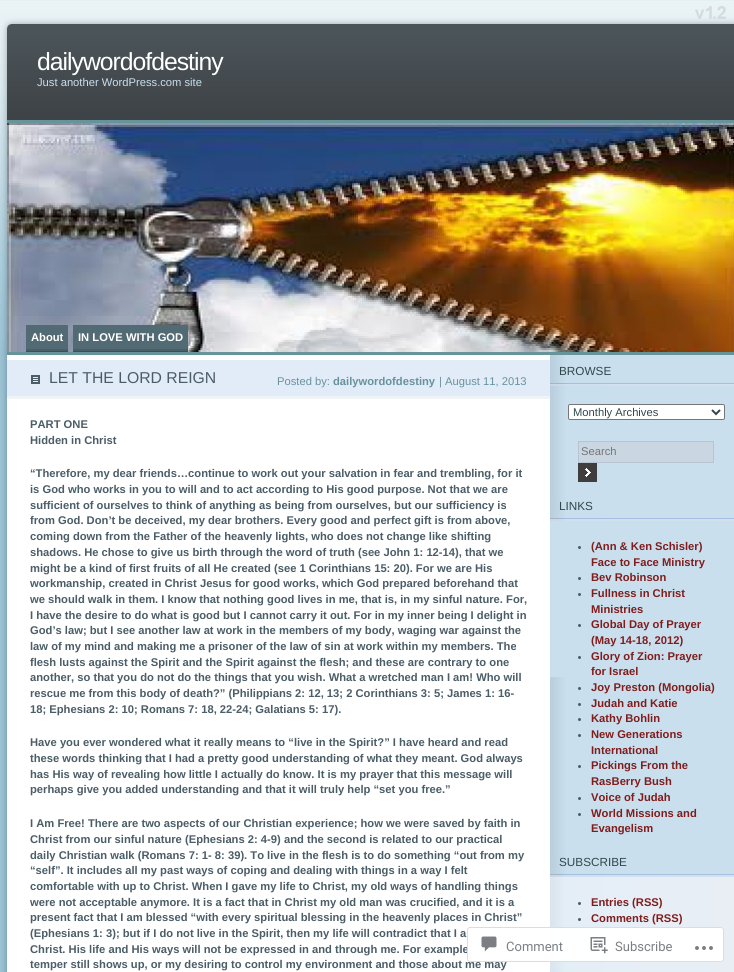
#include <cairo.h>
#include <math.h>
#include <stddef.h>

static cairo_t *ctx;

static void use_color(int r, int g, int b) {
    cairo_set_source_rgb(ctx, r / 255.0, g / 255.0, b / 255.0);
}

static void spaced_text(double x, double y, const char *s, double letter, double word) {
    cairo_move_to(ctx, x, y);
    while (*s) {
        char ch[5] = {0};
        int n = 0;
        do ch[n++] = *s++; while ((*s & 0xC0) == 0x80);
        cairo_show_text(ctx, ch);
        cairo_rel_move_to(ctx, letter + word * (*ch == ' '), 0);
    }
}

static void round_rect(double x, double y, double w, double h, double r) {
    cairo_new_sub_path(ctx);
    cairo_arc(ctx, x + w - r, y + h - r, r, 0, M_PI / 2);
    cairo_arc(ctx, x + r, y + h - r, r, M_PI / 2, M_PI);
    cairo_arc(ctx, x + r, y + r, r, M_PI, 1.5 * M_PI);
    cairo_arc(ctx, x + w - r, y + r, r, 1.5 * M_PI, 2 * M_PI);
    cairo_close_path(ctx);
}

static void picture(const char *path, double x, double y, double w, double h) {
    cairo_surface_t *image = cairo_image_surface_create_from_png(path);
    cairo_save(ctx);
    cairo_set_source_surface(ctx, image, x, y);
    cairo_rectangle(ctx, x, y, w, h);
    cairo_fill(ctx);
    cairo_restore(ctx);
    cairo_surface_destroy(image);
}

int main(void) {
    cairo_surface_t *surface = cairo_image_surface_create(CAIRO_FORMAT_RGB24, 734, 972);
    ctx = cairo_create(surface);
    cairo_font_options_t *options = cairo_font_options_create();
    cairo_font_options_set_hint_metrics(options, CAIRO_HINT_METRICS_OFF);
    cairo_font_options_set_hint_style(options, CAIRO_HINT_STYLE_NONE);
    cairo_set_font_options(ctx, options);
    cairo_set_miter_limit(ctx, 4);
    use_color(255, 255, 255);
    cairo_paint(ctx);
    picture("img1.png", 0, 350, 734, 622);
    picture("img2.png", 0, 0, 734, 350);
    cairo_select_font_face(ctx, "Liberation Sans", CAIRO_FONT_SLANT_NORMAL, CAIRO_FONT_WEIGHT_NORMAL);
    cairo_set_font_size(ctx, 24.75);
    use_color(255, 255, 255);
    spaced_text(37, 70, "dailywordofdestiny", -1, 0);
    cairo_set_font_size(ctx, 11.2);
    use_color(202, 223, 237);
    cairo_move_to(ctx, 37, 86);
    cairo_show_text(ctx, "Just another WordPress.com site");
    picture("img3.png", 7, 123, 727, 229);
    use_color(103, 147, 155);
    cairo_rectangle(ctx, 7, 120, 727, 3);
    cairo_fill(ctx);
    cairo_rectangle(ctx, 7, 352, 727, 3);
    cairo_fill(ctx);
    use_color(65, 78, 83);
    cairo_rectangle(ctx, 26, 351, 42, 1);
    cairo_fill(ctx);
    use_color(82, 106, 116);
    cairo_rectangle(ctx, 26, 325, 42, 24);
    cairo_fill(ctx);
    use_color(74, 94, 101);
    cairo_rectangle(ctx, 26, 349, 42, 2);
    cairo_fill(ctx);
    cairo_select_font_face(ctx, "Liberation Sans", CAIRO_FONT_SLANT_NORMAL, CAIRO_FONT_WEIGHT_BOLD);
    use_color(255, 255, 255);
    cairo_move_to(ctx, 31, 341);
    cairo_show_text(ctx, "About");
    use_color(65, 78, 83);
    cairo_rectangle(ctx, 73, 351, 115, 1);
    cairo_fill(ctx);
    use_color(82, 106, 116);
    cairo_rectangle(ctx, 73, 325, 115, 24);
    cairo_fill(ctx);
    use_color(74, 94, 101);
    cairo_rectangle(ctx, 73, 349, 115, 2);
    cairo_fill(ctx);
    use_color(255, 255, 255);
    cairo_move_to(ctx, 78, 341);
    cairo_show_text(ctx, "IN LOVE WITH GOD");
    use_color(226, 235, 248);
    cairo_rectangle(ctx, 7, 360, 543, 36);
    cairo_fill(ctx);
    use_color(241, 244, 246);
    cairo_rectangle(ctx, 7, 396, 543, 3);
    cairo_fill(ctx);
    picture("img4.png", 31, 375, 9, 9);
    cairo_select_font_face(ctx, "Liberation Sans", CAIRO_FONT_SLANT_NORMAL, CAIRO_FONT_WEIGHT_NORMAL);
    cairo_set_font_size(ctx, 15.75);
    use_color(75, 93, 103);
    cairo_move_to(ctx, 49, 383);
    cairo_show_text(ctx, "LET THE LORD REIGN");
    cairo_set_font_size(ctx, 11.2);
    use_color(103, 147, 155);
    cairo_move_to(ctx, 277, 385);
    cairo_show_text(ctx, "Posted by:");
    cairo_select_font_face(ctx, "Liberation Sans", CAIRO_FONT_SLANT_NORMAL, CAIRO_FONT_WEIGHT_BOLD);
    cairo_move_to(ctx, 333, 385);
    cairo_show_text(ctx, "dailywordofdestiny");
    cairo_select_font_face(ctx, "Liberation Sans", CAIRO_FONT_SLANT_NORMAL, CAIRO_FONT_WEIGHT_NORMAL);
    cairo_move_to(ctx, 439, 385);
    cairo_show_text(ctx, "| August 11, 2013");
    cairo_select_font_face(ctx, "Liberation Sans", CAIRO_FONT_SLANT_NORMAL, CAIRO_FONT_WEIGHT_BOLD);
    use_color(75, 93, 103);
    cairo_move_to(ctx, 30, 428);
    cairo_show_text(ctx, "PART ONE");
    cairo_move_to(ctx, 30, 444);
    cairo_show_text(ctx, "Hidden in Christ");
    cairo_move_to(ctx, 30, 477);
    cairo_show_text(ctx, "“Therefore, my dear friends…continue to work out your salvation in fear and trembling, for it");
    cairo_move_to(ctx, 30, 493);
    cairo_show_text(ctx, "is God who works in you to will and to act according to His good purpose. Not that we are");
    cairo_move_to(ctx, 30, 509);
    cairo_show_text(ctx, "sufficient of ourselves to think of anything as being from ourselves, but our sufficiency is");
    cairo_move_to(ctx, 30, 524);
    cairo_show_text(ctx, "from God. Don’t be deceived, my dear brothers. Every good and perfect gift is from above,");
    cairo_move_to(ctx, 30, 540);
    cairo_show_text(ctx, "coming down from the Father of the heavenly lights, who does not change like shifting");
    cairo_move_to(ctx, 30, 556);
    cairo_show_text(ctx, "shadows. He chose to give us birth through the word of truth (see John 1: 12-14), that we");
    cairo_move_to(ctx, 30, 572);
    cairo_show_text(ctx, "might be a kind of first fruits of all He created (see 1 Corinthians 15: 20). For we are His");
    cairo_move_to(ctx, 30, 587);
    cairo_show_text(ctx, "workmanship, created in Christ Jesus for good works, which God prepared beforehand that");
    cairo_move_to(ctx, 30, 603);
    cairo_show_text(ctx, "we should walk in them. I know that nothing good lives in me, that is, in my sinful nature. For,");
    cairo_move_to(ctx, 30, 619);
    cairo_show_text(ctx, "I have the desire to do what is good but I cannot carry it out. For in my inner being I delight in");
    cairo_move_to(ctx, 30, 634);
    cairo_show_text(ctx, "God’s law; but I see another law at work in the members of my body, waging war against the");
    cairo_move_to(ctx, 30, 650);
    cairo_show_text(ctx, "law of my mind and making me a prisoner of the law of sin at work within my members. The");
    cairo_move_to(ctx, 30, 666);
    cairo_show_text(ctx, "flesh lusts against the Spirit and the Spirit against the flesh; and these are contrary to one");
    cairo_move_to(ctx, 30, 681);
    cairo_show_text(ctx, "another, so that you do not do the things that you wish. What a wretched man I am! Who will");
    cairo_move_to(ctx, 30, 697);
    cairo_show_text(ctx, "rescue me from this body of death?” (Philippians 2: 12, 13; 2 Corinthians 3: 5; James 1: 16-");
    cairo_move_to(ctx, 30, 713);
    cairo_show_text(ctx, "18; Ephesians 2: 10; Romans 7: 18, 22-24; Galatians 5: 17).");
    cairo_move_to(ctx, 30, 746);
    cairo_show_text(ctx, "Have you ever wondered what it really means to “live in the Spirit?” I have heard and read");
    cairo_move_to(ctx, 30, 762);
    cairo_show_text(ctx, "these words thinking that I had a pretty good understanding of what they meant. God always");
    cairo_move_to(ctx, 30, 778);
    cairo_show_text(ctx, "has His way of revealing how little I actually do know. It is my prayer that this message will");
    cairo_move_to(ctx, 30, 793);
    cairo_show_text(ctx, "perhaps give you added understanding and that it will truly help “set you free.”");
    cairo_move_to(ctx, 30, 827);
    cairo_show_text(ctx, "I Am Free! There are two aspects of our Christian experience; how we were saved by faith in");
    cairo_move_to(ctx, 30, 843);
    cairo_show_text(ctx, "Christ from our sinful nature (Ephesians 2: 4-9) and the second is related to our practical");
    cairo_move_to(ctx, 30, 859);
    cairo_show_text(ctx, "daily Christian walk (Romans 7: 1- 8: 39). To live in the flesh is to do something “out from my");
    cairo_move_to(ctx, 30, 874);
    cairo_show_text(ctx, "“self”. It includes all my past ways of coping and dealing with things in a way I felt");
    cairo_move_to(ctx, 30, 890);
    cairo_show_text(ctx, "comfortable with up to Christ. When I gave my life to Christ, my old ways of handling things");
    cairo_move_to(ctx, 30, 906);
    cairo_show_text(ctx, "were not acceptable anymore. It is a fact that in Christ my old man was crucified, and it is a");
    cairo_move_to(ctx, 30, 921);
    cairo_show_text(ctx, "present fact that I am blessed “with every spiritual blessing in the heavenly places in Christ”");
    cairo_move_to(ctx, 30, 937);
    cairo_show_text(ctx, "(Ephesians 1: 3); but if I do not live in the Spirit, then my life will contradict that I a");
    cairo_move_to(ctx, 30, 953);
    cairo_show_text(ctx, "Christ. His life and His ways will not be expressed in and through me. For example");
    cairo_move_to(ctx, 30, 968);
    cairo_show_text(ctx, "temper still shows up, or my desiring to control my environment and those about me may");
    picture("img5.png", 550, 355, 184, 31);
    cairo_select_font_face(ctx, "Liberation Sans", CAIRO_FONT_SLANT_NORMAL, CAIRO_FONT_WEIGHT_NORMAL);
    cairo_set_font_size(ctx, 11.75);
    use_color(50, 71, 75);
    cairo_move_to(ctx, 559, 375);
    cairo_show_text(ctx, "BROWSE");
    picture("img7.png", 550, 386, 184, 135);
    use_color(255, 255, 255);
    round_rect(568.5, 404.5, 156, 15, 1.5);
    cairo_fill_preserve(ctx);
    use_color(118, 118, 118);
    cairo_set_line_width(ctx, 1);
    cairo_stroke(ctx);
    cairo_new_path(ctx);
    cairo_move_to(ctx, 712, 410);
    cairo_line_to(ctx, 716, 414);
    cairo_line_to(ctx, 720, 410);
    use_color(50, 71, 75);
    cairo_set_line_width(ctx, 2);
    cairo_stroke(ctx);
    cairo_set_font_size(ctx, 11.2);
    cairo_move_to(ctx, 573, 416);
    cairo_show_text(ctx, "Monthly Archives");
    use_color(202, 214, 225);
    cairo_rectangle(ctx, 578.5, 441.5, 135, 21);
    cairo_fill_preserve(ctx);
    use_color(185, 195, 209);
    cairo_set_line_width(ctx, 1);
    cairo_stroke(ctx);
    use_color(117, 117, 117);
    cairo_move_to(ctx, 581, 455);
    cairo_show_text(ctx, "Search");
    picture("img6.png", 578, 463, 19, 19);
    cairo_set_font_size(ctx, 11.75);
    use_color(50, 71, 75);
    cairo_move_to(ctx, 559, 510);
    cairo_show_text(ctx, "LINKS");
    use_color(202, 223, 237);
    cairo_rectangle(ctx, 550, 521, 184, 156);
    cairo_fill(ctx);
    use_color(75, 93, 103);
    cairo_arc(ctx, 579.5, 547.5, 1.5, 0, 2 * M_PI);
    cairo_fill(ctx);
    cairo_select_font_face(ctx, "Liberation Sans", CAIRO_FONT_SLANT_NORMAL, CAIRO_FONT_WEIGHT_BOLD);
    cairo_set_font_size(ctx, 11.2);
    use_color(127, 29, 29);
    cairo_move_to(ctx, 591, 550);
    cairo_show_text(ctx, "(Ann & Ken Schisler)");
    cairo_move_to(ctx, 591, 566);
    cairo_show_text(ctx, "Face to Face Ministry");
    use_color(75, 93, 103);
    cairo_new_path(ctx);
    cairo_arc(ctx, 579.5, 578.5, 1.5, 0, 2 * M_PI);
    cairo_fill(ctx);
    use_color(127, 29, 29);
    cairo_move_to(ctx, 591, 581);
    cairo_show_text(ctx, "Bev Robinson");
    use_color(75, 93, 103);
    cairo_new_path(ctx);
    cairo_arc(ctx, 579.5, 594.5, 1.5, 0, 2 * M_PI);
    cairo_fill(ctx);
    use_color(127, 29, 29);
    cairo_move_to(ctx, 591, 597);
    cairo_show_text(ctx, "Fullness in Christ");
    cairo_move_to(ctx, 591, 613);
    cairo_show_text(ctx, "Ministries");
    use_color(75, 93, 103);
    cairo_new_path(ctx);
    cairo_arc(ctx, 579.5, 625.5, 1.5, 0, 2 * M_PI);
    cairo_fill(ctx);
    use_color(127, 29, 29);
    cairo_move_to(ctx, 591, 628);
    cairo_show_text(ctx, "Global Day of Prayer");
    cairo_move_to(ctx, 591, 644);
    cairo_show_text(ctx, "(May 14-18, 2012)");
    use_color(75, 93, 103);
    cairo_new_path(ctx);
    cairo_arc(ctx, 579.5, 657.5, 1.5, 0, 2 * M_PI);
    cairo_fill(ctx);
    use_color(127, 29, 29);
    cairo_move_to(ctx, 591, 660);
    cairo_show_text(ctx, "Glory of Zion: Prayer");
    cairo_move_to(ctx, 591, 675);
    cairo_show_text(ctx, "for Israel");
    picture("img8.png", 550, 677, 184, 200);
    use_color(75, 93, 103);
    cairo_arc(ctx, 579.5, 688.5, 1.5, 0, 2 * M_PI);
    cairo_fill(ctx);
    use_color(127, 29, 29);
    cairo_move_to(ctx, 591, 691);
    cairo_show_text(ctx, "Joy Preston (Mongolia)");
    use_color(75, 93, 103);
    cairo_new_path(ctx);
    cairo_arc(ctx, 579.5, 704.5, 1.5, 0, 2 * M_PI);
    cairo_fill(ctx);
    use_color(127, 29, 29);
    cairo_move_to(ctx, 591, 707);
    cairo_show_text(ctx, "Judah and Katie");
    use_color(75, 93, 103);
    cairo_new_path(ctx);
    cairo_arc(ctx, 579.5, 719.5, 1.5, 0, 2 * M_PI);
    cairo_fill(ctx);
    use_color(127, 29, 29);
    cairo_move_to(ctx, 591, 722);
    cairo_show_text(ctx, "Kathy Bohlin");
    use_color(75, 93, 103);
    cairo_new_path(ctx);
    cairo_arc(ctx, 579.5, 735.5, 1.5, 0, 2 * M_PI);
    cairo_fill(ctx);
    use_color(127, 29, 29);
    cairo_move_to(ctx, 591, 738);
    cairo_show_text(ctx, "New Generations");
    cairo_move_to(ctx, 591, 754);
    cairo_show_text(ctx, "International");
    use_color(75, 93, 103);
    cairo_new_path(ctx);
    cairo_arc(ctx, 579.5, 766.5, 1.5, 0, 2 * M_PI);
    cairo_fill(ctx);
    use_color(127, 29, 29);
    cairo_move_to(ctx, 591, 769);
    cairo_show_text(ctx, "Pickings From the");
    cairo_move_to(ctx, 591, 785);
    cairo_show_text(ctx, "RasBerry Bush");
    use_color(75, 93, 103);
    cairo_new_path(ctx);
    cairo_arc(ctx, 579.5, 798.5, 1.5, 0, 2 * M_PI);
    cairo_fill(ctx);
    use_color(127, 29, 29);
    cairo_move_to(ctx, 591, 801);
    cairo_show_text(ctx, "Voice of Judah");
    use_color(75, 93, 103);
    cairo_new_path(ctx);
    cairo_arc(ctx, 579.5, 814.5, 1.5, 0, 2 * M_PI);
    cairo_fill(ctx);
    use_color(127, 29, 29);
    cairo_move_to(ctx, 591, 817);
    cairo_show_text(ctx, "World Missions and");
    cairo_move_to(ctx, 591, 832);
    cairo_show_text(ctx, "Evangelism");
    cairo_select_font_face(ctx, "Liberation Sans", CAIRO_FONT_SLANT_NORMAL, CAIRO_FONT_WEIGHT_NORMAL);
    cairo_set_font_size(ctx, 11.75);
    use_color(50, 71, 75);
    cairo_move_to(ctx, 559, 866);
    cairo_show_text(ctx, "SUBSCRIBE");
    use_color(75, 93, 103);
    cairo_new_path(ctx);
    cairo_arc(ctx, 579.5, 903.5, 1.5, 0, 2 * M_PI);
    cairo_fill(ctx);
    cairo_select_font_face(ctx, "Liberation Sans", CAIRO_FONT_SLANT_NORMAL, CAIRO_FONT_WEIGHT_BOLD);
    cairo_set_font_size(ctx, 11.2);
    use_color(127, 29, 29);
    cairo_move_to(ctx, 591, 906);
    cairo_show_text(ctx, "Entries (RSS)");
    use_color(75, 93, 103);
    cairo_new_path(ctx);
    cairo_arc(ctx, 579.5, 919.5, 1.5, 0, 2 * M_PI);
    cairo_fill(ctx);
    use_color(127, 29, 29);
    cairo_move_to(ctx, 591, 922);
    cairo_show_text(ctx, "Comments (RSS)");
    cairo_set_source_rgba(ctx, 1, 1, 1, 0.98);
    round_rect(467, 927, 257, 35, 3);
    cairo_fill(ctx);
    round_rect(467.5, 927.5, 256, 34, 2.5);
    cairo_set_source_rgba(ctx, 0.863, 0.863, 0.871, 0.98);
    cairo_stroke(ctx);
    picture("img9.png", 481, 936, 16, 16);
    cairo_select_font_face(ctx, "Roboto", CAIRO_FONT_SLANT_NORMAL, CAIRO_FONT_WEIGHT_NORMAL);
    cairo_set_font_size(ctx, 13);
    use_color(123, 127, 132);
    cairo_move_to(ctx, 506, 951);
    cairo_show_text(ctx, "Comment");
    picture("img10.png", 590, 937, 18, 17);
    cairo_move_to(ctx, 615, 951);
    cairo_show_text(ctx, "Subscribe");
    picture("img11.png", 695, 946, 18, 4);
    cairo_surface_write_to_png(surface, "result.png");
    cairo_font_options_destroy(options);
    cairo_destroy(ctx);
    cairo_surface_destroy(surface);
    return 0;
}
